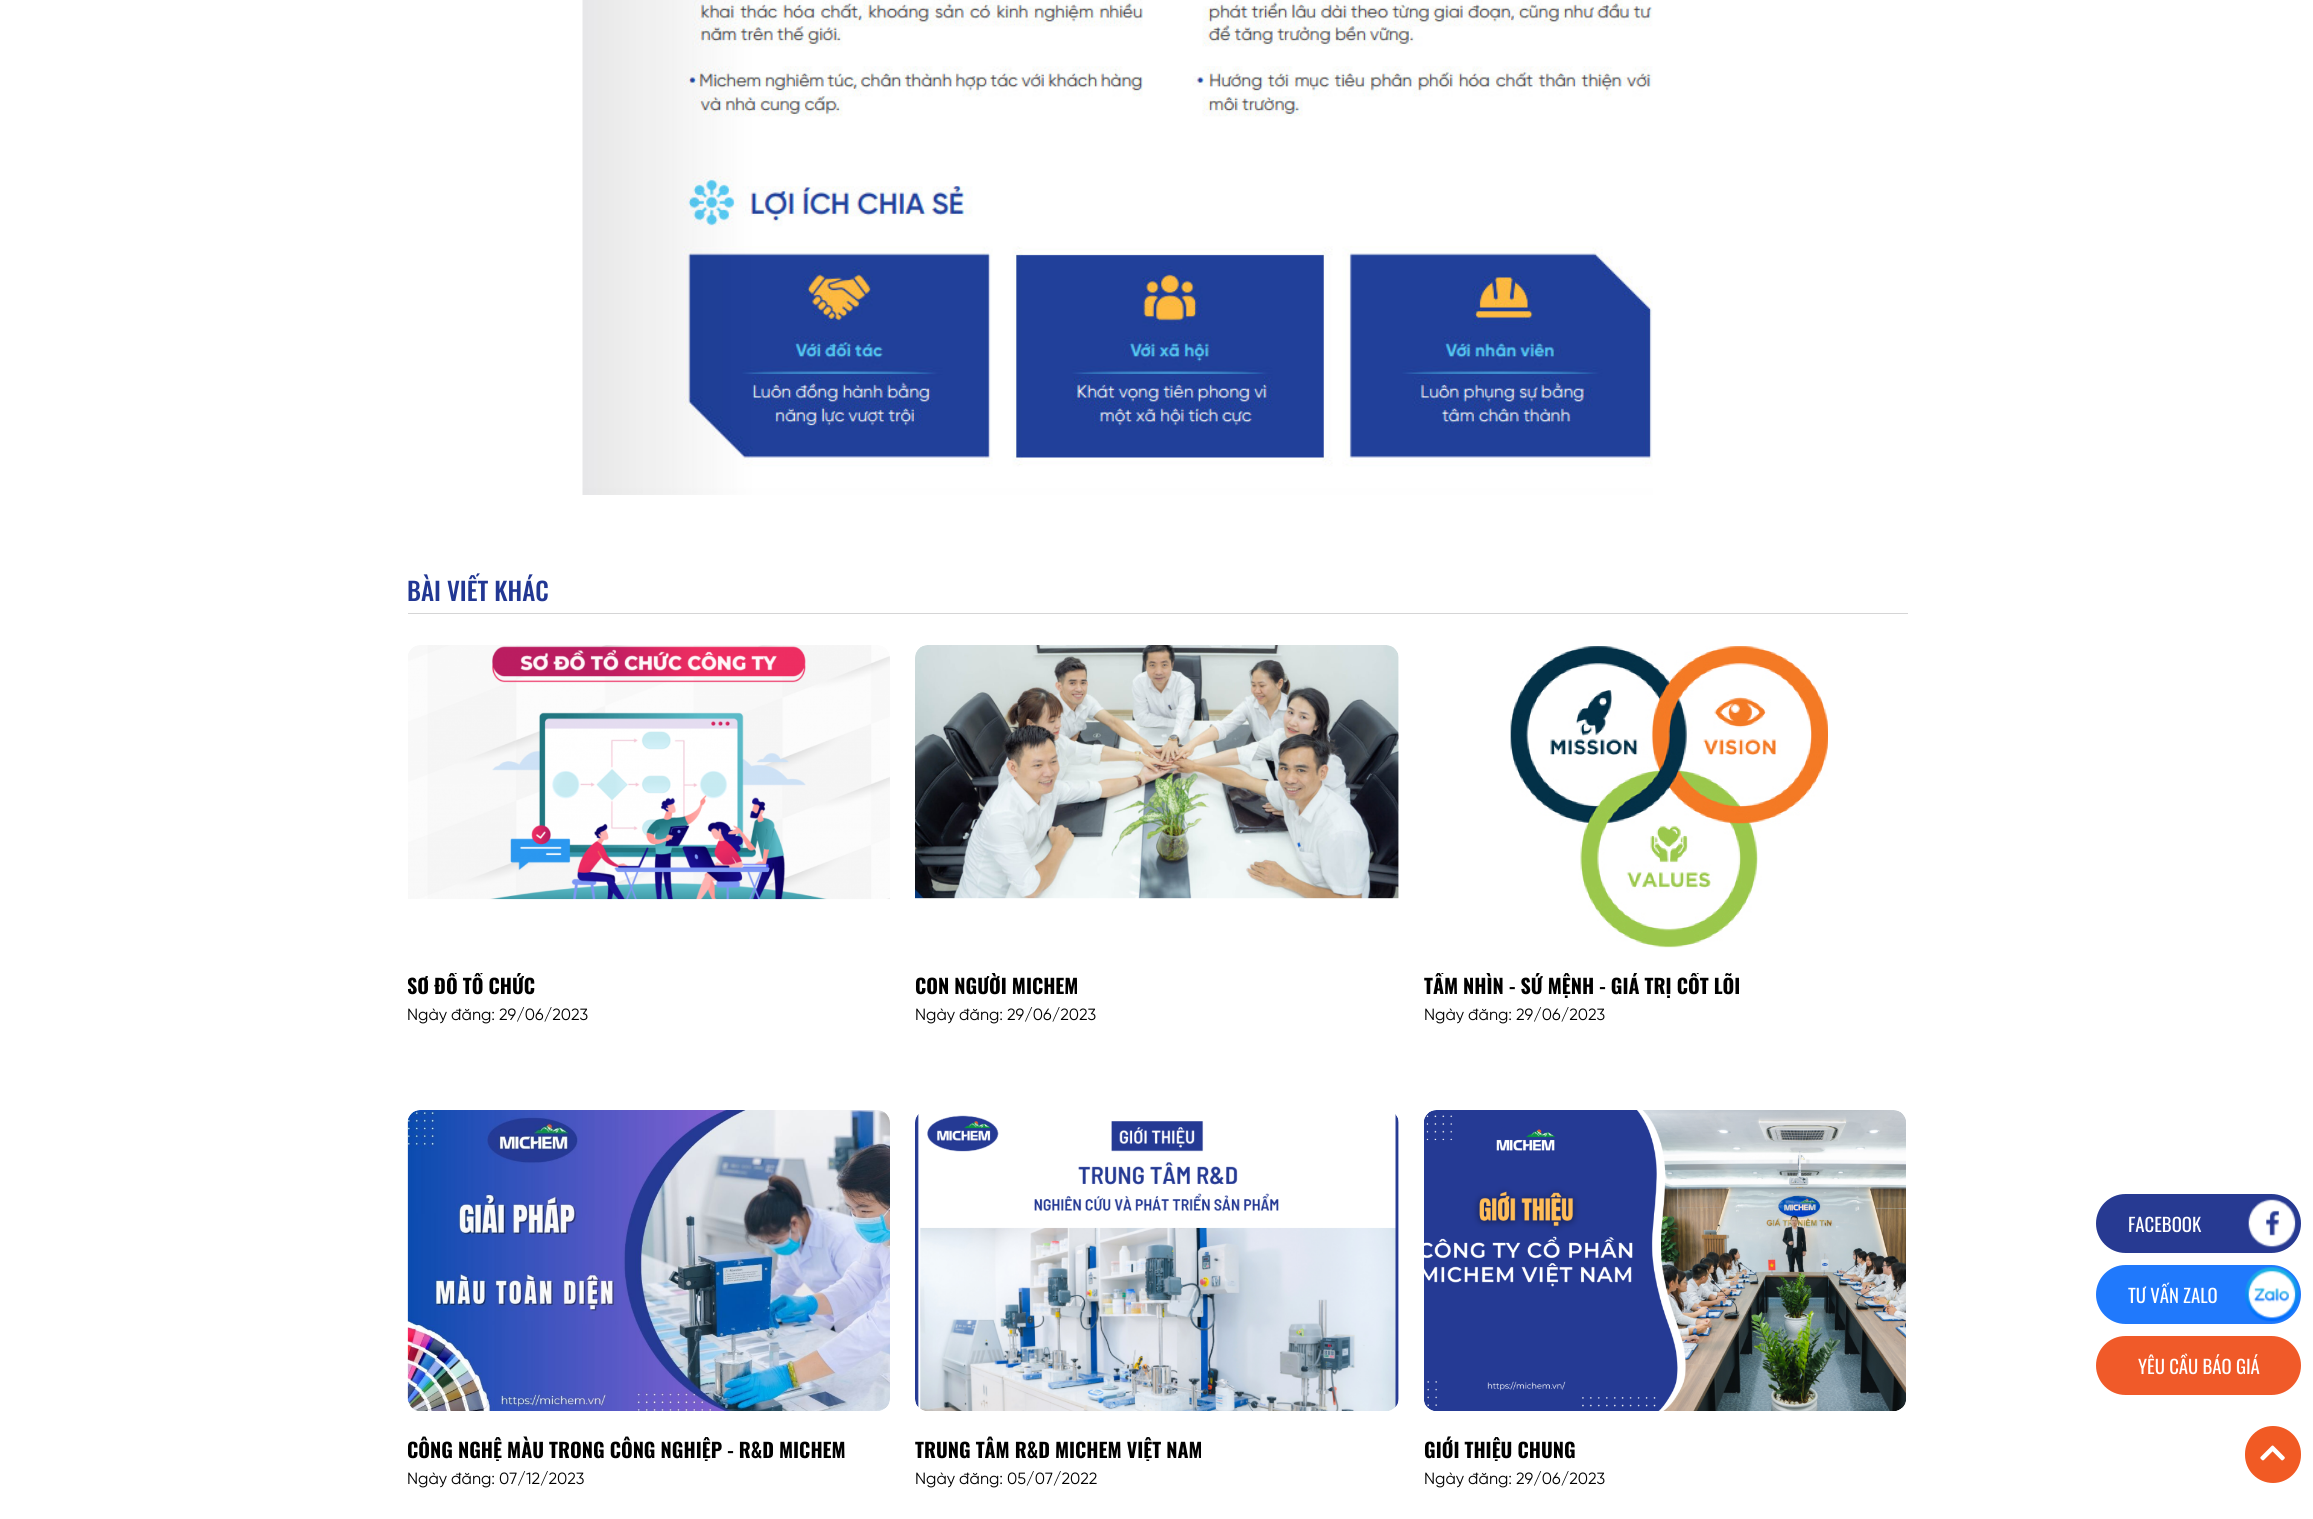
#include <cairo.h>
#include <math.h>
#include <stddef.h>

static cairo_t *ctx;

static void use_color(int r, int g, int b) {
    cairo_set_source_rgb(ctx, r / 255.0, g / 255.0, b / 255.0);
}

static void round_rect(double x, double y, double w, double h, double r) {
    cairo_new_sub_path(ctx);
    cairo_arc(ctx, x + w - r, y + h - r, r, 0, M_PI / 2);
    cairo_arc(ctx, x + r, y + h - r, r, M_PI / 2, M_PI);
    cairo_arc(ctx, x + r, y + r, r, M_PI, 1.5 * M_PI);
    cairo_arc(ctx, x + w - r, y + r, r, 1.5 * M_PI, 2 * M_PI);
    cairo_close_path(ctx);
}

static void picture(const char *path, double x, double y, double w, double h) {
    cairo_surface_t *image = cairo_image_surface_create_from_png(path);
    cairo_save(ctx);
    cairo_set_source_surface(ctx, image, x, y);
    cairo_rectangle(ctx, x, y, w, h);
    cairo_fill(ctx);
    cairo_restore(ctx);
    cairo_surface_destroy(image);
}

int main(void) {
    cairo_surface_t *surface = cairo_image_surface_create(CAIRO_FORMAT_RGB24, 2313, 1519);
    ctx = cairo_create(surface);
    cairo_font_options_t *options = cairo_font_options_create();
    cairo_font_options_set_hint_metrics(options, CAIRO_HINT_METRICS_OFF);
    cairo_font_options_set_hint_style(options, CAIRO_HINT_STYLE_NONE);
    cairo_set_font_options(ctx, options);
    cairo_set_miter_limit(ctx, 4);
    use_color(255, 255, 255);
    cairo_paint(ctx);
    picture("img1.png", 582, 0, 1071, 495);
    use_color(213, 213, 214);
    cairo_rectangle(ctx, 408, 613, 1500, 1);
    cairo_fill(ctx);
    cairo_select_font_face(ctx, "Oswald Medium", CAIRO_FONT_SLANT_NORMAL, CAIRO_FONT_WEIGHT_NORMAL);
    cairo_set_font_size(ctx, 25);
    use_color(34, 55, 147);
    cairo_move_to(ctx, 407, 601);
    cairo_show_text(ctx, "BÀI VIẾT KHÁC");
    picture("img2.png", 408, 645, 482, 255);
    cairo_save(ctx);
    cairo_rectangle(ctx, 408, 973, 482, 25);
    cairo_clip(ctx);
    cairo_select_font_face(ctx, "Oswald", CAIRO_FONT_SLANT_NORMAL, CAIRO_FONT_WEIGHT_BOLD);
    cairo_set_font_size(ctx, 20);
    use_color(0, 0, 0);
    cairo_move_to(ctx, 407, 994);
    cairo_show_text(ctx, "SƠ ĐỒ TỔ CHỨC");
    cairo_restore(ctx);
    cairo_select_font_face(ctx, "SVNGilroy", CAIRO_FONT_SLANT_NORMAL, CAIRO_FONT_WEIGHT_NORMAL);
    cairo_set_font_size(ctx, 16.25);
    use_color(0, 0, 0);
    cairo_move_to(ctx, 407, 1020);
    cairo_show_text(ctx, "Ngày đăng: 29/06/2023");
    picture("img3.png", 915, 645, 484, 254);
    cairo_save(ctx);
    cairo_rectangle(ctx, 915, 973, 484, 25);
    cairo_clip(ctx);
    cairo_select_font_face(ctx, "Oswald", CAIRO_FONT_SLANT_NORMAL, CAIRO_FONT_WEIGHT_BOLD);
    cairo_set_font_size(ctx, 20);
    cairo_move_to(ctx, 915, 994);
    cairo_show_text(ctx, "CON NGƯỜI MICHEM");
    cairo_restore(ctx);
    cairo_move_to(ctx, 915, 1020);
    cairo_show_text(ctx, "Ngày đăng: 29/06/2023");
    picture("img4.png", 1510, 646, 318, 302);
    cairo_save(ctx);
    cairo_rectangle(ctx, 1424, 973, 482, 25);
    cairo_clip(ctx);
    cairo_select_font_face(ctx, "Oswald", CAIRO_FONT_SLANT_NORMAL, CAIRO_FONT_WEIGHT_BOLD);
    cairo_set_font_size(ctx, 20);
    cairo_move_to(ctx, 1424, 994);
    cairo_show_text(ctx, "TẦM NHÌN - SỨ MỆNH - GIÁ TRỊ CỐT LÕI");
    cairo_restore(ctx);
    cairo_move_to(ctx, 1424, 1020);
    cairo_show_text(ctx, "Ngày đăng: 29/06/2023");
    picture("img5.png", 407, 1110, 483, 301);
    cairo_save(ctx);
    cairo_rectangle(ctx, 408, 1436, 482, 25);
    cairo_clip(ctx);
    cairo_select_font_face(ctx, "Oswald", CAIRO_FONT_SLANT_NORMAL, CAIRO_FONT_WEIGHT_BOLD);
    cairo_set_font_size(ctx, 20);
    cairo_move_to(ctx, 407, 1458);
    cairo_show_text(ctx, "CÔNG NGHỆ MÀU TRONG CÔNG NGHIỆP - R&D MICHEM");
    cairo_restore(ctx);
    cairo_move_to(ctx, 407, 1484);
    cairo_show_text(ctx, "Ngày đăng: 07/12/2023");
    picture("img6.png", 915, 1114, 484, 297);
    cairo_save(ctx);
    cairo_rectangle(ctx, 915, 1436, 484, 25);
    cairo_clip(ctx);
    cairo_select_font_face(ctx, "Oswald", CAIRO_FONT_SLANT_NORMAL, CAIRO_FONT_WEIGHT_BOLD);
    cairo_set_font_size(ctx, 20);
    cairo_move_to(ctx, 915, 1458);
    cairo_show_text(ctx, "TRUNG TÂM R&D MICHEM VIỆT NAM");
    cairo_restore(ctx);
    cairo_move_to(ctx, 915, 1484);
    cairo_show_text(ctx, "Ngày đăng: 05/07/2022");
    picture("img7.png", 1424, 1110, 482, 301);
    cairo_save(ctx);
    cairo_rectangle(ctx, 1424, 1436, 482, 25);
    cairo_clip(ctx);
    cairo_select_font_face(ctx, "Oswald", CAIRO_FONT_SLANT_NORMAL, CAIRO_FONT_WEIGHT_BOLD);
    cairo_set_font_size(ctx, 20);
    cairo_move_to(ctx, 1424, 1458);
    cairo_show_text(ctx, "GIỚI THIỆU CHUNG");
    cairo_restore(ctx);
    cairo_move_to(ctx, 1424, 1484);
    cairo_show_text(ctx, "Ngày đăng: 29/06/2023");
    use_color(39, 58, 146);
    round_rect(2096, 1194, 205, 59, 29.5);
    cairo_fill(ctx);
    cairo_select_font_face(ctx, "Oswald", CAIRO_FONT_SLANT_NORMAL, CAIRO_FONT_WEIGHT_NORMAL);
    cairo_set_font_size(ctx, 18.75);
    use_color(255, 255, 255);
    cairo_move_to(ctx, 2128, 1232);
    cairo_show_text(ctx, "FACEBOOK");
    picture("img8.png", 2248, 1199, 48, 49);
    use_color(32, 121, 252);
    round_rect(2096, 1265, 205, 59, 29.5);
    cairo_fill(ctx);
    use_color(255, 255, 255);
    cairo_move_to(ctx, 2128, 1303);
    cairo_show_text(ctx, "TƯ VẤN ZALO");
    picture("img9.png", 2245, 1267, 54, 55);
    use_color(240, 90, 41);
    round_rect(2096, 1336, 205, 59, 29.5);
    cairo_fill(ctx);
    use_color(255, 255, 255);
    cairo_move_to(ctx, 2138, 1374);
    cairo_show_text(ctx, "YÊU CẦU BÁO GIÁ");
    use_color(241, 90, 36);
    round_rect(2245, 1426, 56, 57, 28);
    cairo_fill(ctx);
    picture("img10.png", 2260, 1445, 25, 16);
    cairo_surface_write_to_png(surface, "result.png");
    cairo_font_options_destroy(options);
    cairo_destroy(ctx);
    cairo_surface_destroy(surface);
    return 0;
}
